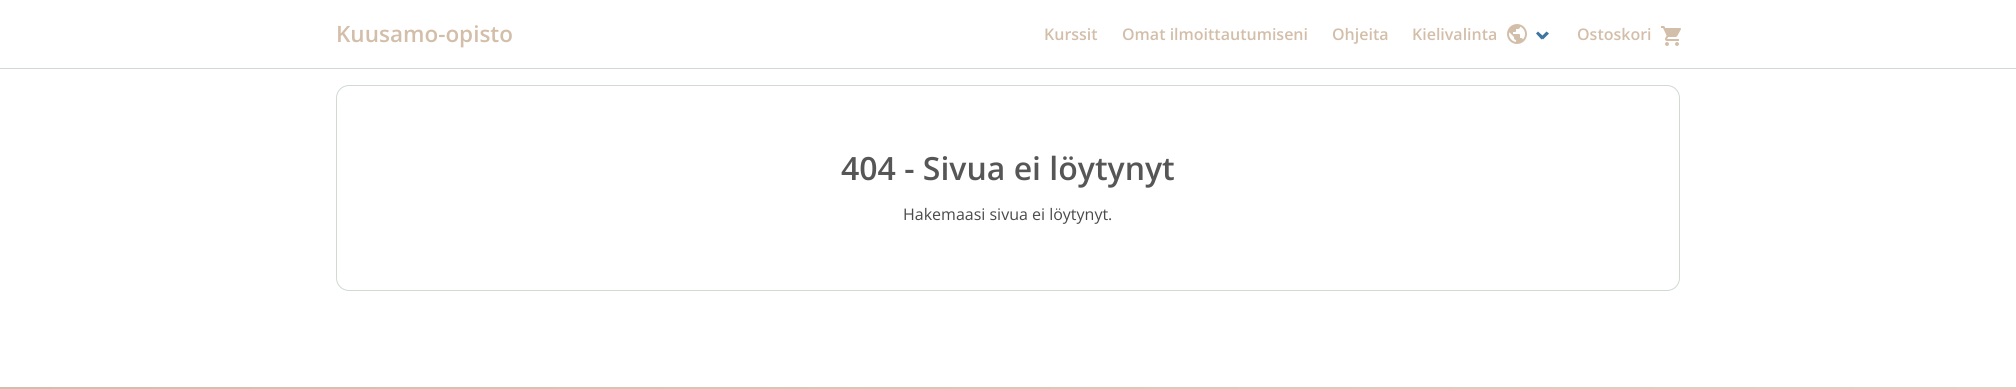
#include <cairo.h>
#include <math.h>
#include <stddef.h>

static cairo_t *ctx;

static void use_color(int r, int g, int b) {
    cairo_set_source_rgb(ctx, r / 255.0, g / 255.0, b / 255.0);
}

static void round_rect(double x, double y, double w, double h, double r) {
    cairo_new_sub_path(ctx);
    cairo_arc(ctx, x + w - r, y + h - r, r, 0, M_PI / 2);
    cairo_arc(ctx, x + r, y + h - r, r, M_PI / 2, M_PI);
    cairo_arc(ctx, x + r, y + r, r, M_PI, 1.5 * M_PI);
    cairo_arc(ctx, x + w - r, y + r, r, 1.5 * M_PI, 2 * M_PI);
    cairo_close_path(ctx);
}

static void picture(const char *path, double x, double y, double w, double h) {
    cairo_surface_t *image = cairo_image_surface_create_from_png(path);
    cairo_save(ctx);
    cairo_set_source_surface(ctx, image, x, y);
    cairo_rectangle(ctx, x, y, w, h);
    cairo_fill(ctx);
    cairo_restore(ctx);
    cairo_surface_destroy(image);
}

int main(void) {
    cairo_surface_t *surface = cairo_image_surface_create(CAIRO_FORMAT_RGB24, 2016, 389);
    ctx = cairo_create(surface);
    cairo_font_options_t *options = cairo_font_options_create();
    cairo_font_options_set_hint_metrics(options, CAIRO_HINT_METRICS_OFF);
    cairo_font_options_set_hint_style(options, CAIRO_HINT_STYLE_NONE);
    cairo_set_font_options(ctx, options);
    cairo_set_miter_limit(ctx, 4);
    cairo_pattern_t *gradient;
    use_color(255, 255, 255);
    cairo_paint(ctx);
    use_color(208, 217, 210);
    cairo_rectangle(ctx, 0, 68, 2016, 1);
    cairo_fill(ctx);
    cairo_select_font_face(ctx, "Open Sans SemiBold", CAIRO_FONT_SLANT_NORMAL, CAIRO_FONT_WEIGHT_NORMAL);
    cairo_set_font_size(ctx, 22.5);
    use_color(211, 190, 169);
    cairo_move_to(ctx, 336, 42);
    cairo_show_text(ctx, "Kuusamo-opisto");
    cairo_set_font_size(ctx, 16);
    cairo_move_to(ctx, 1044, 40);
    cairo_show_text(ctx, "Kurssit");
    cairo_move_to(ctx, 1122, 40);
    cairo_show_text(ctx, "Omat ilmoittautumiseni");
    cairo_move_to(ctx, 1332, 40);
    cairo_show_text(ctx, "Ohjeita");
    cairo_move_to(ctx, 1412, 40);
    cairo_show_text(ctx, "Kielivalinta");
    picture("img1.png", 1507, 24, 20, 20);
    use_color(63, 117, 158);
    cairo_new_path(ctx);
    cairo_move_to(ctx, 1541, 37);
    cairo_line_to(ctx, 1546.5, 31.5);
    cairo_line_to(ctx, 1549, 33.5);
    cairo_line_to(ctx, 1543, 39.5);
    cairo_close_path(ctx);
    cairo_fill(ctx);
    cairo_new_path(ctx);
    cairo_move_to(ctx, 1536, 33.5);
    cairo_line_to(ctx, 1538, 31.5);
    cairo_line_to(ctx, 1544, 37);
    cairo_line_to(ctx, 1541.5, 39.5);
    cairo_close_path(ctx);
    cairo_fill(ctx);
    use_color(211, 190, 169);
    cairo_move_to(ctx, 1577, 40);
    cairo_show_text(ctx, "Ostoskori");
    picture("img2.png", 1661, 26, 20, 20);
    round_rect(336.5, 85.5, 1343, 205, 12.5);
    use_color(208, 217, 210);
    cairo_set_line_width(ctx, 1);
    cairo_stroke(ctx);
    cairo_set_font_size(ctx, 32);
    use_color(86, 86, 86);
    cairo_move_to(ctx, 841, 180);
    cairo_show_text(ctx, "404 - Sivua ei löytynyt");
    cairo_select_font_face(ctx, "Open Sans", CAIRO_FONT_SLANT_NORMAL, CAIRO_FONT_WEIGHT_NORMAL);
    cairo_set_font_size(ctx, 16);
    use_color(74, 74, 74);
    cairo_move_to(ctx, 903, 220);
    cairo_show_text(ctx, "Hakemaasi sivua ei löytynyt.");
    gradient = cairo_pattern_create_linear(2016, 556, 0, 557);
    cairo_pattern_add_color_stop_rgba(gradient, 0, 0.882, 0.824, 0.769, 1);
    cairo_pattern_add_color_stop_rgba(gradient, 1, 0.827, 0.745, 0.663, 1);
    cairo_set_source(ctx, gradient);
    cairo_pattern_destroy(gradient);
    cairo_rectangle(ctx, 0, 387, 2016, 2);
    cairo_fill(ctx);
    cairo_surface_write_to_png(surface, "result.png");
    cairo_font_options_destroy(options);
    cairo_destroy(ctx);
    cairo_surface_destroy(surface);
    return 0;
}
